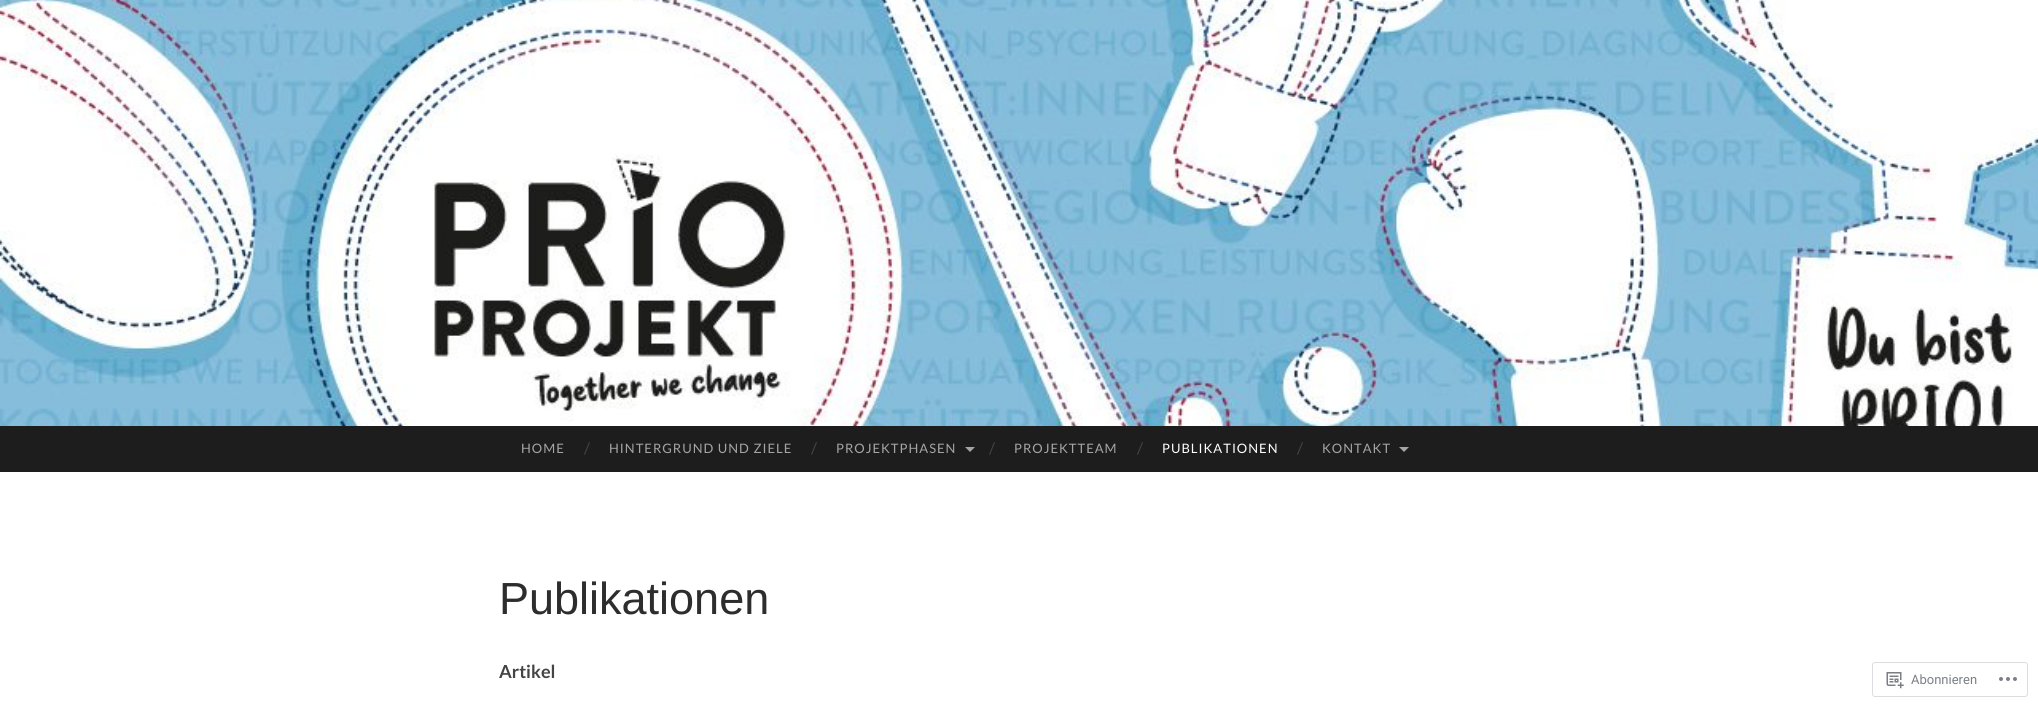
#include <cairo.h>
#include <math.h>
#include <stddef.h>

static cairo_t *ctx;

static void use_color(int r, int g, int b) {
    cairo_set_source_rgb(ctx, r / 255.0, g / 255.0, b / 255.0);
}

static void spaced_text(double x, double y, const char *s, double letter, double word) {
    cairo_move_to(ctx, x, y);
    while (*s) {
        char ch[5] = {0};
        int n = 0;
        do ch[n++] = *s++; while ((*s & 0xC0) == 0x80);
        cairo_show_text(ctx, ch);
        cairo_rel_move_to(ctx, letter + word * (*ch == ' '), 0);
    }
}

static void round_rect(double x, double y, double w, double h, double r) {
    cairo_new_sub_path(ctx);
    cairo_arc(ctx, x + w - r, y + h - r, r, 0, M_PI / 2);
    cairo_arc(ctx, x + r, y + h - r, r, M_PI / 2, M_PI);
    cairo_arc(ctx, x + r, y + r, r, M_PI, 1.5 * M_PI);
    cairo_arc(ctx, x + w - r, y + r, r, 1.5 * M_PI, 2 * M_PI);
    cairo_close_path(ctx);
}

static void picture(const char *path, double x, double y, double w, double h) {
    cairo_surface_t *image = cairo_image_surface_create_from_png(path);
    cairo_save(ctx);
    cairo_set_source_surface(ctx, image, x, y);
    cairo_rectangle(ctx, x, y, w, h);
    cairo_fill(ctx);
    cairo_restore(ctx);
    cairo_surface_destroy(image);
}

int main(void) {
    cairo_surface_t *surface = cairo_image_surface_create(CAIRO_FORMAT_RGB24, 2038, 707);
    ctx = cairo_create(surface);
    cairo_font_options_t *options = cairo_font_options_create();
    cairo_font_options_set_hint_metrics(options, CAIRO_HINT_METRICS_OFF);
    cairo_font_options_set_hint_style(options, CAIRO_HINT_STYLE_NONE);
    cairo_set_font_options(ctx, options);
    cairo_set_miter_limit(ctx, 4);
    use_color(255, 255, 255);
    cairo_paint(ctx);
    picture("img1.png", 0, 0, 2038, 426);
    use_color(29, 29, 29);
    cairo_rectangle(ctx, 0, 426, 2038, 46);
    cairo_fill(ctx);
    cairo_select_font_face(ctx, "Lato", CAIRO_FONT_SLANT_NORMAL, CAIRO_FONT_WEIGHT_NORMAL);
    cairo_set_font_size(ctx, 13);
    use_color(165, 165, 165);
    spaced_text(521, 453, "HOME", 1, 0);
    cairo_set_font_size(ctx, 16);
    use_color(68, 68, 68);
    cairo_move_to(ctx, 584, 454);
    cairo_show_text(ctx, "/");
    cairo_set_font_size(ctx, 13);
    use_color(165, 165, 165);
    spaced_text(609, 453, "HINTERGRUND UND ZIELE", 1, 0);
    cairo_set_font_size(ctx, 16);
    use_color(68, 68, 68);
    cairo_move_to(ctx, 811, 454);
    cairo_show_text(ctx, "/");
    cairo_set_font_size(ctx, 13);
    use_color(165, 165, 165);
    spaced_text(836, 453, "PROJEKTPHASEN", 1, 0);
    cairo_new_path(ctx);
    cairo_move_to(ctx, 965, 447);
    cairo_line_to(ctx, 975, 447);
    cairo_line_to(ctx, 970, 452);
    cairo_close_path(ctx);
    cairo_fill(ctx);
    cairo_set_font_size(ctx, 16);
    use_color(68, 68, 68);
    cairo_move_to(ctx, 989, 454);
    cairo_show_text(ctx, "/");
    cairo_set_font_size(ctx, 13);
    use_color(165, 165, 165);
    spaced_text(1014, 453, "PROJEKTTEAM", 1, 0);
    cairo_set_font_size(ctx, 16);
    use_color(68, 68, 68);
    cairo_move_to(ctx, 1137, 454);
    cairo_show_text(ctx, "/");
    cairo_set_font_size(ctx, 13);
    use_color(255, 255, 255);
    spaced_text(1162, 453, "PUBLIKATIONEN", 1, 0);
    cairo_set_font_size(ctx, 16);
    use_color(68, 68, 68);
    cairo_move_to(ctx, 1297, 454);
    cairo_show_text(ctx, "/");
    cairo_set_font_size(ctx, 13);
    use_color(165, 165, 165);
    spaced_text(1322, 453, "KONTAKT", 1, 0);
    cairo_new_path(ctx);
    cairo_move_to(ctx, 1399, 447);
    cairo_line_to(ctx, 1409, 447);
    cairo_line_to(ctx, 1404, 452);
    cairo_close_path(ctx);
    cairo_fill(ctx);
    cairo_select_font_face(ctx, "Arimo", CAIRO_FONT_SLANT_NORMAL, CAIRO_FONT_WEIGHT_NORMAL);
    cairo_set_font_size(ctx, 45);
    use_color(45, 45, 45);
    cairo_move_to(ctx, 499, 614);
    cairo_show_text(ctx, "Publikationen");
    cairo_select_font_face(ctx, "Lato", CAIRO_FONT_SLANT_NORMAL, CAIRO_FONT_WEIGHT_BOLD);
    cairo_set_font_size(ctx, 18);
    use_color(68, 68, 68);
    cairo_move_to(ctx, 499, 678);
    cairo_show_text(ctx, "Artikel");
    round_rect(1872.5, 662.5, 155, 34, 2.5);
    use_color(221, 221, 223);
    cairo_set_line_width(ctx, 1);
    cairo_stroke(ctx);
    picture("img2.png", 1886, 672, 18, 17);
    cairo_select_font_face(ctx, "Roboto", CAIRO_FONT_SLANT_NORMAL, CAIRO_FONT_WEIGHT_NORMAL);
    cairo_set_font_size(ctx, 13);
    use_color(123, 127, 133);
    cairo_move_to(ctx, 1911, 684);
    cairo_show_text(ctx, "Abonnieren");
    picture("img3.png", 1999, 677, 18, 4);
    cairo_surface_write_to_png(surface, "result.png");
    cairo_font_options_destroy(options);
    cairo_destroy(ctx);
    cairo_surface_destroy(surface);
    return 0;
}
